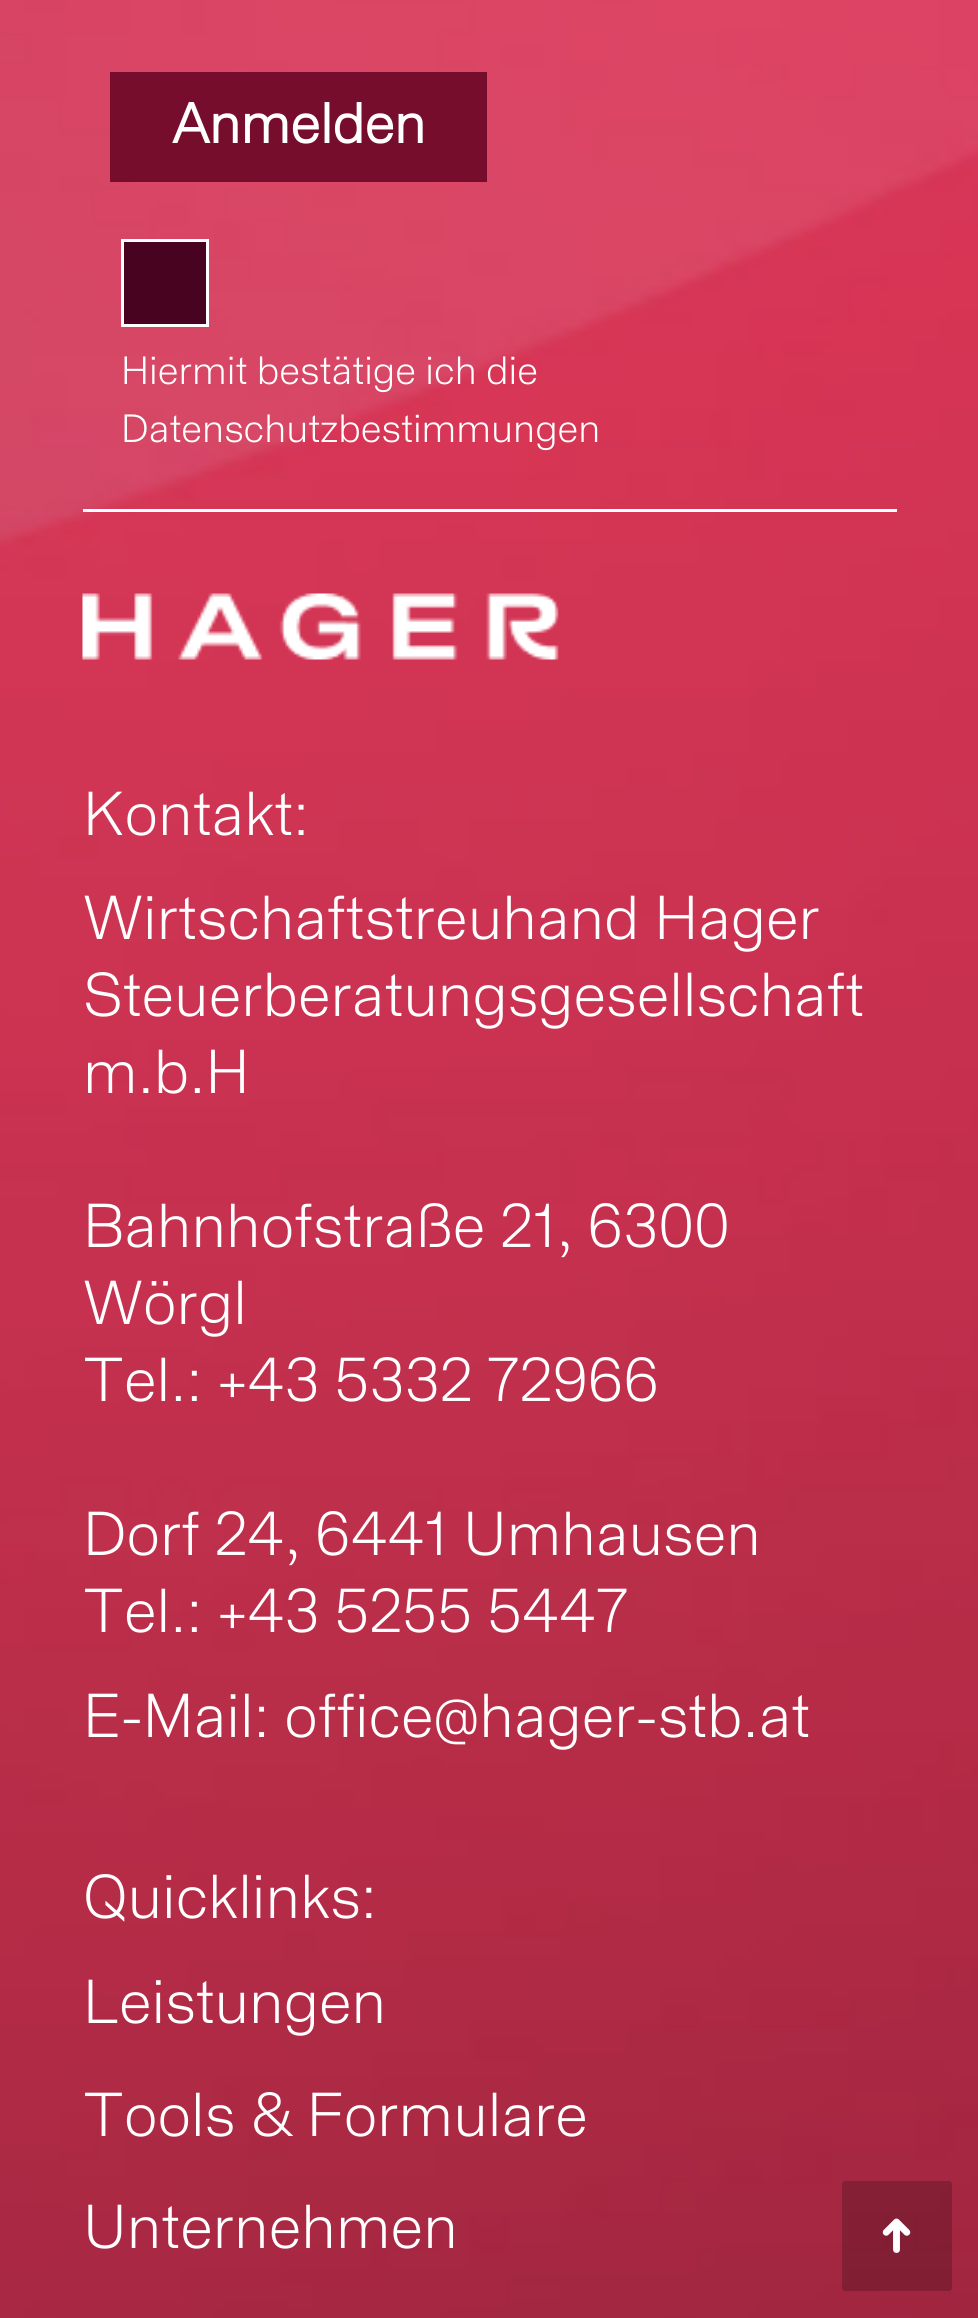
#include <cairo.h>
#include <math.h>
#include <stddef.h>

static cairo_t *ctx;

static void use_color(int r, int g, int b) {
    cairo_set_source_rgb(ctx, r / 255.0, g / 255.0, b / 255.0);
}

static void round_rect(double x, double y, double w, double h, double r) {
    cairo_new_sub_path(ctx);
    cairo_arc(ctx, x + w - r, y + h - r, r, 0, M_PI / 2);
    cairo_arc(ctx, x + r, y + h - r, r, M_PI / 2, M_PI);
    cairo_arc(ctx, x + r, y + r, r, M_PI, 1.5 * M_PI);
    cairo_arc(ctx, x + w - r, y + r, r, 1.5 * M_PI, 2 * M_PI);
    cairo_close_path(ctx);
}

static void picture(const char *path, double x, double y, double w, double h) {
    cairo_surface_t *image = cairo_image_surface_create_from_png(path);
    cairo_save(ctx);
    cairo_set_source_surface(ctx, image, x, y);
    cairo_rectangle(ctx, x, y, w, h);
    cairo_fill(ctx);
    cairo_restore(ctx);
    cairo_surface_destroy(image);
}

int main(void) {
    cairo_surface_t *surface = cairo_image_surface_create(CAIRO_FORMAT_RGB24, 978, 2318);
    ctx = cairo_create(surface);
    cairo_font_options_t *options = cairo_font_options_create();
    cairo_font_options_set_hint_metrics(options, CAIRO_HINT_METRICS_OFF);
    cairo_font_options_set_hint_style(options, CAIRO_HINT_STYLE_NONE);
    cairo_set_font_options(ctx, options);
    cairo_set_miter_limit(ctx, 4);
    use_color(255, 255, 255);
    cairo_paint(ctx);
    picture("img1.png", 0, 0, 978, 2318);
    use_color(255, 255, 255);
    cairo_rectangle(ctx, 83, 509, 814, 3);
    cairo_fill(ctx);
    use_color(118, 13, 44);
    cairo_rectangle(ctx, 110, 72, 377, 110);
    cairo_fill(ctx);
    cairo_select_font_face(ctx, "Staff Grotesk", CAIRO_FONT_SLANT_NORMAL, CAIRO_FONT_WEIGHT_BOLD);
    cairo_set_font_size(ctx, 55);
    use_color(255, 255, 255);
    cairo_move_to(ctx, 172, 143);
    cairo_show_text(ctx, "Anmelden");
    use_color(72, 3, 32);
    cairo_rectangle(ctx, 122.5, 240.5, 85, 85);
    cairo_fill_preserve(ctx);
    use_color(255, 255, 255);
    cairo_set_line_width(ctx, 3);
    cairo_stroke(ctx);
    cairo_select_font_face(ctx, "Staff Grotesk Light", CAIRO_FONT_SLANT_NORMAL, CAIRO_FONT_WEIGHT_NORMAL);
    cairo_set_font_size(ctx, 38.5);
    cairo_move_to(ctx, 121, 384);
    cairo_show_text(ctx, "Hiermit bestätige ich die");
    cairo_move_to(ctx, 121, 442);
    cairo_show_text(ctx, "Datenschutzbestimmungen");
    picture("img2.png", 82, 593, 477, 67);
    cairo_set_font_size(ctx, 60.5);
    cairo_move_to(ctx, 83, 835);
    cairo_show_text(ctx, "Kontakt:");
    cairo_move_to(ctx, 83, 939);
    cairo_show_text(ctx, "Wirtschaftstreuhand Hager");
    cairo_move_to(ctx, 83, 1016);
    cairo_show_text(ctx, "Steuerberatungsgesellschaft");
    cairo_move_to(ctx, 83, 1093);
    cairo_show_text(ctx, "m.b.H");
    cairo_move_to(ctx, 83, 1247);
    cairo_show_text(ctx, "Bahnhofstraße 21, 6300");
    cairo_move_to(ctx, 83, 1324);
    cairo_show_text(ctx, "Wörgl");
    cairo_move_to(ctx, 83, 1401);
    cairo_show_text(ctx, "Tel.: +43 5332 72966");
    cairo_move_to(ctx, 83, 1555);
    cairo_show_text(ctx, "Dorf 24, 6441 Umhausen");
    cairo_move_to(ctx, 83, 1632);
    cairo_show_text(ctx, "Tel.: +43 5255 5447");
    cairo_move_to(ctx, 83, 1737);
    cairo_show_text(ctx, "E-Mail: office@hager-stb.at");
    cairo_move_to(ctx, 83, 1918);
    cairo_show_text(ctx, "Quicklinks:");
    cairo_move_to(ctx, 83, 2023);
    cairo_show_text(ctx, "Leistungen");
    cairo_move_to(ctx, 83, 2136);
    cairo_show_text(ctx, "Tools & Formulare");
    cairo_move_to(ctx, 83, 2248);
    cairo_show_text(ctx, "Unternehmen");
    cairo_set_source_rgba(ctx, 0, 0, 0, 0.2);
    round_rect(842, 2181, 110, 110, 3);
    cairo_fill(ctx);
    picture("img3.png", 882, 2218, 29, 35);
    cairo_surface_write_to_png(surface, "result.png");
    cairo_font_options_destroy(options);
    cairo_destroy(ctx);
    cairo_surface_destroy(surface);
    return 0;
}
